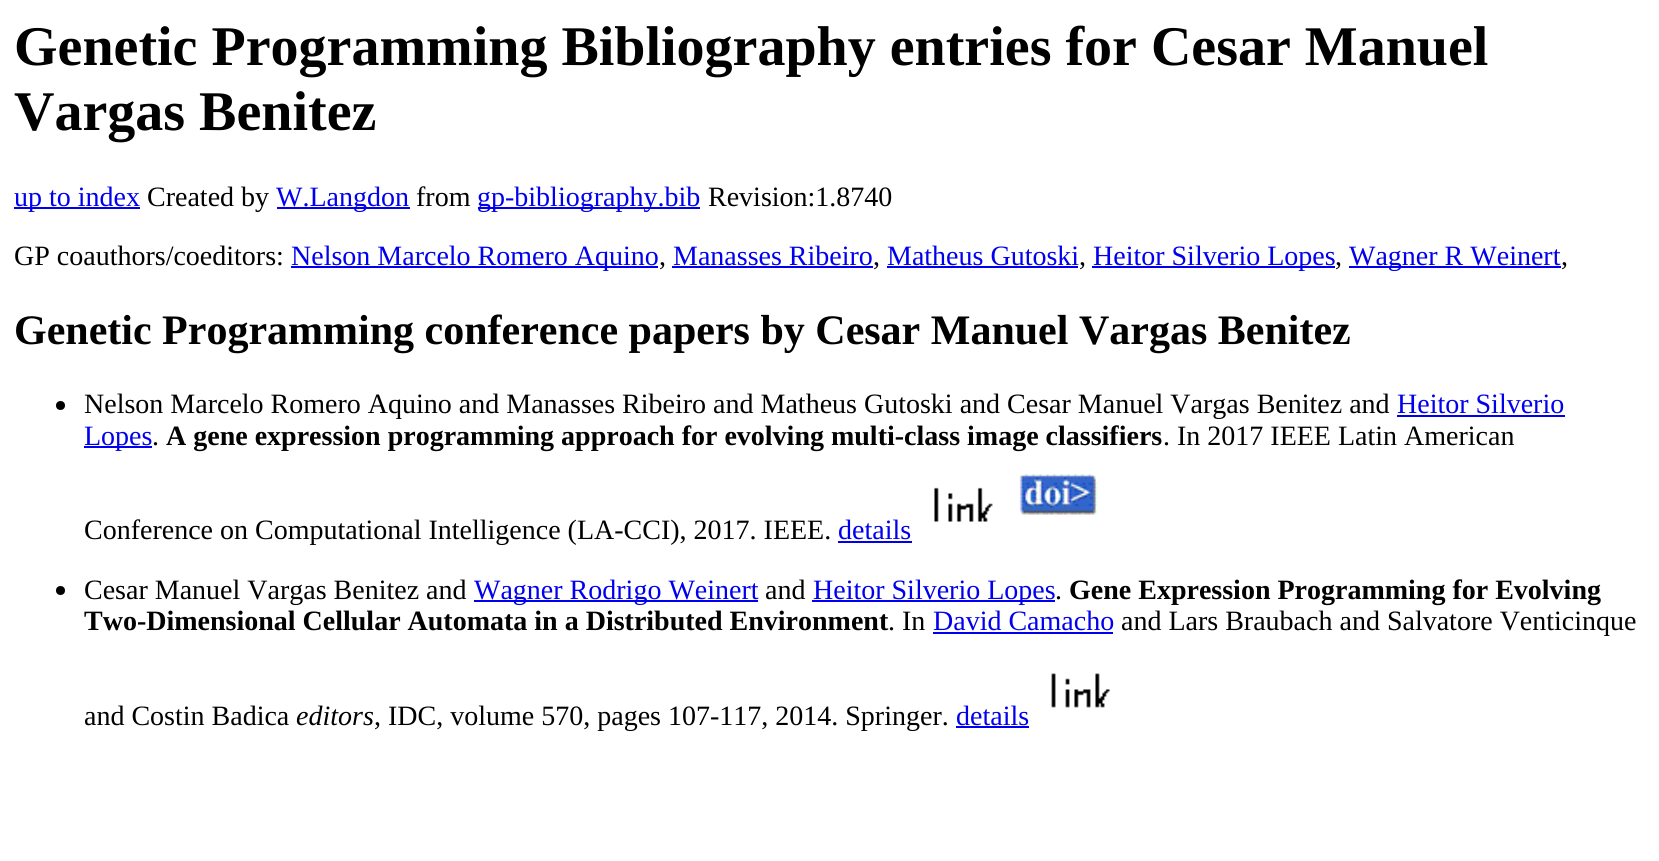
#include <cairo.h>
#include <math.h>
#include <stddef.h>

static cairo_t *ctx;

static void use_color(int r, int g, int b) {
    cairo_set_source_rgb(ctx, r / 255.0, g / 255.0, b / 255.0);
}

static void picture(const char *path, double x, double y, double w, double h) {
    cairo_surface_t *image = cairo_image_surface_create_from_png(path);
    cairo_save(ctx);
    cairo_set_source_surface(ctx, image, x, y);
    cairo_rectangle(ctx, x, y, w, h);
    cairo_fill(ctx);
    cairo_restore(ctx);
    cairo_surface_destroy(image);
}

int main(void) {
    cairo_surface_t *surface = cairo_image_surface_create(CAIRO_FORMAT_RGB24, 1659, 861);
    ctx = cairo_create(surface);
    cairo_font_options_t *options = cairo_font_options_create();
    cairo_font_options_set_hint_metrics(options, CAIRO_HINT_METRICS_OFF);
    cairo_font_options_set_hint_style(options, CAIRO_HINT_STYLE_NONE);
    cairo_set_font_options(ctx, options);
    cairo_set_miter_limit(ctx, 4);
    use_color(255, 255, 255);
    cairo_paint(ctx);
    cairo_select_font_face(ctx, "Liberation Serif", CAIRO_FONT_SLANT_NORMAL, CAIRO_FONT_WEIGHT_BOLD);
    cairo_set_font_size(ctx, 56);
    use_color(0, 0, 0);
    cairo_move_to(ctx, 14, 65);
    cairo_show_text(ctx, "Genetic Programming Bibliography entries for Cesar Manuel");
    cairo_move_to(ctx, 14, 130);
    cairo_show_text(ctx, "Vargas Benitez");
    use_color(0, 0, 238);
    cairo_rectangle(ctx, 14, 207, 126, 2);
    cairo_fill(ctx);
    cairo_select_font_face(ctx, "Liberation Serif", CAIRO_FONT_SLANT_NORMAL, CAIRO_FONT_WEIGHT_NORMAL);
    cairo_set_font_size(ctx, 28);
    cairo_move_to(ctx, 14, 206);
    cairo_show_text(ctx, "up to index");
    use_color(0, 0, 0);
    cairo_move_to(ctx, 147, 206);
    cairo_show_text(ctx, "Created by");
    use_color(0, 0, 238);
    cairo_rectangle(ctx, 277, 207, 133, 2);
    cairo_fill(ctx);
    cairo_move_to(ctx, 276, 206);
    cairo_show_text(ctx, "W.Langdon");
    use_color(0, 0, 0);
    cairo_move_to(ctx, 416, 206);
    cairo_show_text(ctx, "from");
    use_color(0, 0, 238);
    cairo_rectangle(ctx, 478, 207, 222, 2);
    cairo_fill(ctx);
    cairo_move_to(ctx, 477, 206);
    cairo_show_text(ctx, "gp-bibliography.bib");
    use_color(0, 0, 0);
    cairo_move_to(ctx, 708, 206);
    cairo_show_text(ctx, "Revision:1.8740");
    cairo_move_to(ctx, 14, 265);
    cairo_show_text(ctx, "GP coauthors/coeditors:");
    use_color(0, 0, 238);
    cairo_rectangle(ctx, 291, 266, 367, 2);
    cairo_fill(ctx);
    cairo_move_to(ctx, 291, 265);
    cairo_show_text(ctx, "Nelson Marcelo Romero Aquino");
    use_color(0, 0, 0);
    cairo_move_to(ctx, 659, 265);
    cairo_show_text(ctx, ",");
    use_color(0, 0, 238);
    cairo_move_to(ctx, 673, 265);
    cairo_show_text(ctx, "Manasses Ribeiro");
    cairo_rectangle(ctx, 672, 266, 201, 2);
    cairo_fill(ctx);
    use_color(0, 0, 0);
    cairo_move_to(ctx, 873, 265);
    cairo_show_text(ctx, ",");
    use_color(0, 0, 238);
    cairo_move_to(ctx, 887, 265);
    cairo_show_text(ctx, "Matheus Gutoski");
    cairo_rectangle(ctx, 887, 266, 191, 2);
    cairo_fill(ctx);
    use_color(0, 0, 0);
    cairo_move_to(ctx, 1079, 265);
    cairo_show_text(ctx, ",");
    use_color(0, 0, 238);
    cairo_rectangle(ctx, 1092, 266, 243, 2);
    cairo_fill(ctx);
    cairo_move_to(ctx, 1093, 265);
    cairo_show_text(ctx, "Heitor Silverio Lopes");
    use_color(0, 0, 0);
    cairo_move_to(ctx, 1335, 265);
    cairo_show_text(ctx, ",");
    use_color(0, 0, 238);
    cairo_rectangle(ctx, 1349, 266, 212, 2);
    cairo_fill(ctx);
    cairo_move_to(ctx, 1349, 265);
    cairo_show_text(ctx, "Wagner R Weinert");
    use_color(0, 0, 0);
    cairo_move_to(ctx, 1561, 265);
    cairo_show_text(ctx, ",");
    cairo_select_font_face(ctx, "Liberation Serif", CAIRO_FONT_SLANT_NORMAL, CAIRO_FONT_WEIGHT_BOLD);
    cairo_set_font_size(ctx, 42);
    cairo_move_to(ctx, 14, 344);
    cairo_show_text(ctx, "Genetic Programming conference papers by Cesar Manuel Vargas Benitez");
    cairo_new_path(ctx);
    cairo_arc(ctx, 60.5, 405.5, 4.5, 0, 2 * M_PI);
    cairo_fill(ctx);
    cairo_select_font_face(ctx, "Liberation Serif", CAIRO_FONT_SLANT_NORMAL, CAIRO_FONT_WEIGHT_NORMAL);
    cairo_set_font_size(ctx, 28);
    cairo_move_to(ctx, 84, 413);
    cairo_show_text(ctx, "Nelson Marcelo Romero Aquino and Manasses Ribeiro and Matheus Gutoski and Cesar Manuel Vargas Benitez and");
    use_color(0, 0, 238);
    cairo_move_to(ctx, 1397, 413);
    cairo_show_text(ctx, "Heitor Silverio");
    cairo_rectangle(ctx, 1397, 415, 168, 2);
    cairo_fill(ctx);
    cairo_rectangle(ctx, 84, 446, 68, 2);
    cairo_fill(ctx);
    cairo_move_to(ctx, 84, 445);
    cairo_show_text(ctx, "Lopes");
    use_color(0, 0, 0);
    cairo_move_to(ctx, 152, 445);
    cairo_show_text(ctx, ".");
    cairo_select_font_face(ctx, "Liberation Serif", CAIRO_FONT_SLANT_NORMAL, CAIRO_FONT_WEIGHT_BOLD);
    cairo_move_to(ctx, 166, 445);
    cairo_show_text(ctx, "A gene expression programming approach for evolving multi-class image classifiers");
    cairo_select_font_face(ctx, "Liberation Serif", CAIRO_FONT_SLANT_NORMAL, CAIRO_FONT_WEIGHT_NORMAL);
    cairo_move_to(ctx, 1163, 445);
    cairo_show_text(ctx, ". In 2017 IEEE Latin American");
    picture("img1.png", 934, 487, 59, 35);
    picture("img2.png", 1019, 474, 79, 41);
    cairo_move_to(ctx, 84, 539);
    cairo_show_text(ctx, "Conference on Computational Intelligence (LA-CCI), 2017. IEEE.");
    use_color(0, 0, 238);
    cairo_move_to(ctx, 838, 539);
    cairo_show_text(ctx, "details");
    cairo_rectangle(ctx, 838, 541, 74, 2);
    cairo_fill(ctx);
    use_color(0, 0, 0);
    cairo_arc(ctx, 60.5, 590.5, 4.5, 0, 2 * M_PI);
    cairo_fill(ctx);
    cairo_move_to(ctx, 84, 599);
    cairo_show_text(ctx, "Cesar Manuel Vargas Benitez and");
    use_color(0, 0, 238);
    cairo_rectangle(ctx, 474, 600, 284, 2);
    cairo_fill(ctx);
    cairo_move_to(ctx, 474, 599);
    cairo_show_text(ctx, "Wagner Rodrigo Weinert");
    use_color(0, 0, 0);
    cairo_move_to(ctx, 765, 599);
    cairo_show_text(ctx, "and");
    use_color(0, 0, 238);
    cairo_rectangle(ctx, 812, 600, 243, 2);
    cairo_fill(ctx);
    cairo_move_to(ctx, 813, 599);
    cairo_show_text(ctx, "Heitor Silverio Lopes");
    cairo_select_font_face(ctx, "Liberation Serif", CAIRO_FONT_SLANT_NORMAL, CAIRO_FONT_WEIGHT_BOLD);
    use_color(0, 0, 0);
    cairo_move_to(ctx, 1069, 599);
    cairo_show_text(ctx, "Gene Expression Programming for Evolving");
    cairo_select_font_face(ctx, "Liberation Serif", CAIRO_FONT_SLANT_NORMAL, CAIRO_FONT_WEIGHT_NORMAL);
    cairo_move_to(ctx, 1055, 599);
    cairo_show_text(ctx, ".");
    cairo_select_font_face(ctx, "Liberation Serif", CAIRO_FONT_SLANT_NORMAL, CAIRO_FONT_WEIGHT_BOLD);
    cairo_move_to(ctx, 84, 630);
    cairo_show_text(ctx, "Two-Dimensional Cellular Automata in a Distributed Environment");
    cairo_select_font_face(ctx, "Liberation Serif", CAIRO_FONT_SLANT_NORMAL, CAIRO_FONT_WEIGHT_NORMAL);
    cairo_move_to(ctx, 888, 630);
    cairo_show_text(ctx, ". In");
    use_color(0, 0, 238);
    cairo_move_to(ctx, 933, 630);
    cairo_show_text(ctx, "David Camacho");
    cairo_rectangle(ctx, 933, 632, 180, 2);
    cairo_fill(ctx);
    use_color(0, 0, 0);
    cairo_move_to(ctx, 1121, 630);
    cairo_show_text(ctx, "and Lars Braubach and Salvatore Venticinque");
    picture("img3.png", 1051, 673, 59, 35);
    cairo_move_to(ctx, 84, 725);
    cairo_show_text(ctx, "and Costin Badica");
    cairo_select_font_face(ctx, "Liberation Serif", CAIRO_FONT_SLANT_ITALIC, CAIRO_FONT_WEIGHT_NORMAL);
    cairo_move_to(ctx, 296, 725);
    cairo_show_text(ctx, "editors");
    cairo_select_font_face(ctx, "Liberation Serif", CAIRO_FONT_SLANT_NORMAL, CAIRO_FONT_WEIGHT_NORMAL);
    cairo_move_to(ctx, 374, 725);
    cairo_show_text(ctx, ", IDC, volume 570, pages 107-117, 2014. Springer.");
    use_color(0, 0, 238);
    cairo_move_to(ctx, 956, 725);
    cairo_show_text(ctx, "details");
    cairo_rectangle(ctx, 956, 726, 73, 2);
    cairo_fill(ctx);
    cairo_surface_write_to_png(surface, "result.png");
    cairo_font_options_destroy(options);
    cairo_destroy(ctx);
    cairo_surface_destroy(surface);
    return 0;
}
